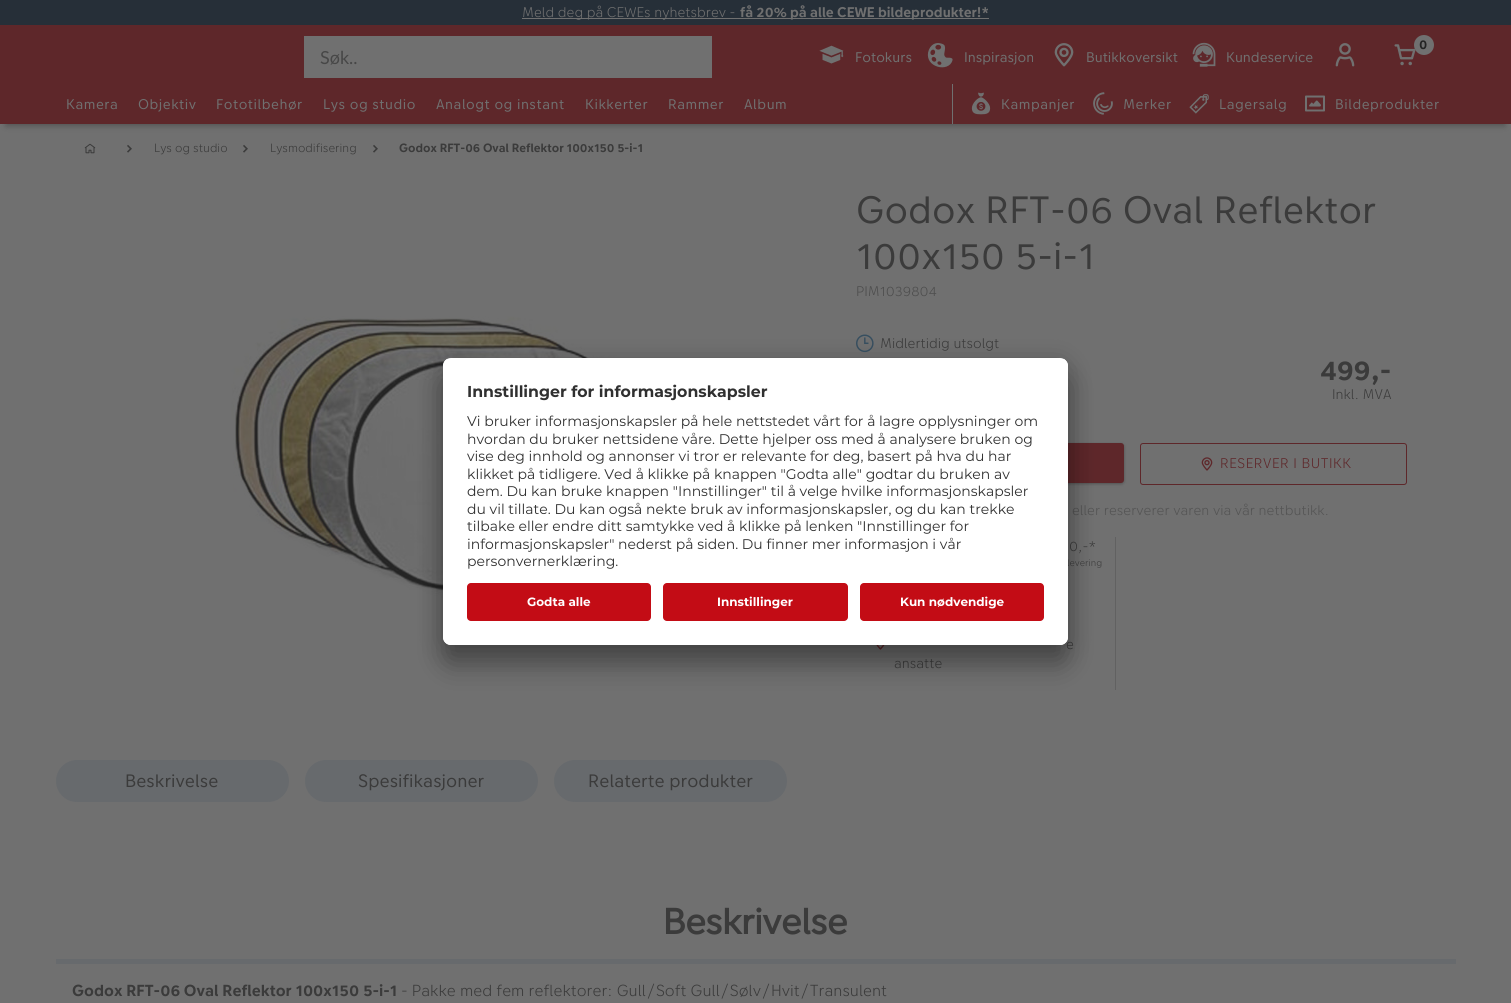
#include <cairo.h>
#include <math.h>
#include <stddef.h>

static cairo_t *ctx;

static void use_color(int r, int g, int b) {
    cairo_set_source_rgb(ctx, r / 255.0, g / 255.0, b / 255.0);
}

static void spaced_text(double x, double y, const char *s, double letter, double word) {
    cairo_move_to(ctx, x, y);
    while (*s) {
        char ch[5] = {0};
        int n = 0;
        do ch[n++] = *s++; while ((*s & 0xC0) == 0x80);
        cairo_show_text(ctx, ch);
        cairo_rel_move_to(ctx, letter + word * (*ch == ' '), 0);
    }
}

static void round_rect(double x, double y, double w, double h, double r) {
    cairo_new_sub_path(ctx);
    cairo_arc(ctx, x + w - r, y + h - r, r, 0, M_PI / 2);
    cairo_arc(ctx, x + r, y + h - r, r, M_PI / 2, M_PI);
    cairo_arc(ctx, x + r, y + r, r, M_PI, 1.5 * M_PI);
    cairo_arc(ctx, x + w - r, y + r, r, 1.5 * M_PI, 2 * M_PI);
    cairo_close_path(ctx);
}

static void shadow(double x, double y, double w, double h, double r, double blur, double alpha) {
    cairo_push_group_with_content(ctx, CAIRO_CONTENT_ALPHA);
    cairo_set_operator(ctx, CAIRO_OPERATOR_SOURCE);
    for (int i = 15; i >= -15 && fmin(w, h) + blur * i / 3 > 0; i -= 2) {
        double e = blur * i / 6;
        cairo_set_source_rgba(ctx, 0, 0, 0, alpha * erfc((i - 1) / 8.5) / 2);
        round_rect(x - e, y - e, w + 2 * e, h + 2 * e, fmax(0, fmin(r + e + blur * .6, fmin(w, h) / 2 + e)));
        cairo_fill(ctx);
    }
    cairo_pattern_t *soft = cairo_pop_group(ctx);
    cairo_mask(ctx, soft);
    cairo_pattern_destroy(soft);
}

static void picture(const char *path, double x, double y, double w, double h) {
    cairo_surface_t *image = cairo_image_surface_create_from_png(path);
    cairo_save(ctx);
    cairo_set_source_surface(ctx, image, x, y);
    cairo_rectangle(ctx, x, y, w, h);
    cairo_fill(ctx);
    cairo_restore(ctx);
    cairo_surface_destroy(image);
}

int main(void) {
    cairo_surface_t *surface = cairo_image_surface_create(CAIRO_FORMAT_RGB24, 1511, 1003);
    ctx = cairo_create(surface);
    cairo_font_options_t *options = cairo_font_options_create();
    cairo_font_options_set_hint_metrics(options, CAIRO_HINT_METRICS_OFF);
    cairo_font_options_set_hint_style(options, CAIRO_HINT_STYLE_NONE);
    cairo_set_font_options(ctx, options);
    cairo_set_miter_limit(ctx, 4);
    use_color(112, 112, 112);
    cairo_paint(ctx);
    use_color(38, 47, 56);
    cairo_rectangle(ctx, 0, 0, 1511, 25);
    cairo_fill(ctx);
    use_color(112, 112, 112);
    cairo_rectangle(ctx, 522, 18, 467, 1);
    cairo_fill(ctx);
    cairo_select_font_face(ctx, "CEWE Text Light", CAIRO_FONT_SLANT_NORMAL, CAIRO_FONT_WEIGHT_NORMAL);
    cairo_set_font_size(ctx, 14);
    cairo_move_to(ctx, 522, 17);
    cairo_show_text(ctx, "Meld deg på CEWEs nyhetsbrev -");
    cairo_select_font_face(ctx, "CEWE Text", CAIRO_FONT_SLANT_NORMAL, CAIRO_FONT_WEIGHT_BOLD);
    cairo_move_to(ctx, 740, 17);
    cairo_show_text(ctx, "få 20% på alle CEWE bildeprodukter!*");
    use_color(84, 84, 84);
    shadow(6, 39, 1499, 87, 0, 3, 1);
    use_color(94, 39, 42);
    cairo_rectangle(ctx, 0, 25, 1511, 99);
    cairo_fill(ctx);
    use_color(112, 112, 112);
    cairo_rectangle(ctx, 304, 36, 408, 42);
    cairo_fill(ctx);
    cairo_select_font_face(ctx, "Lato", CAIRO_FONT_SLANT_NORMAL, CAIRO_FONT_WEIGHT_NORMAL);
    cairo_set_font_size(ctx, 18);
    use_color(71, 71, 71);
    cairo_move_to(ctx, 320, 64);
    cairo_show_text(ctx, "Søk..");
    picture("img1.png", 819, 45, 25, 19);
    cairo_select_font_face(ctx, "CEWE Text", CAIRO_FONT_SLANT_NORMAL, CAIRO_FONT_WEIGHT_NORMAL);
    cairo_set_font_size(ctx, 14);
    use_color(112, 112, 112);
    cairo_move_to(ctx, 855, 62);
    cairo_show_text(ctx, "Fotokurs");
    picture("img2.png", 927, 43, 26, 25);
    cairo_move_to(ctx, 964, 62);
    cairo_show_text(ctx, "Inspirasjon");
    picture("img3.png", 1054, 43, 20, 24);
    cairo_move_to(ctx, 1086, 62);
    cairo_show_text(ctx, "Butikkoversikt");
    picture("img4.png", 1192, 42, 24, 25);
    cairo_move_to(ctx, 1226, 62);
    cairo_show_text(ctx, "Kundeservice");
    picture("img5.png", 1335, 43, 20, 24);
    picture("img6.png", 1394, 44, 22, 22);
    cairo_arc(ctx, 1424, 45, 10, 0, 2 * M_PI);
    cairo_fill(ctx);
    cairo_select_font_face(ctx, "CEWE Text", CAIRO_FONT_SLANT_NORMAL, CAIRO_FONT_WEIGHT_BOLD);
    cairo_set_font_size(ctx, 13);
    use_color(36, 36, 36);
    cairo_move_to(ctx, 1419, 49);
    cairo_show_text(ctx, "0");
    cairo_select_font_face(ctx, "CEWE Text", CAIRO_FONT_SLANT_NORMAL, CAIRO_FONT_WEIGHT_NORMAL);
    cairo_set_font_size(ctx, 14);
    use_color(112, 112, 112);
    spaced_text(66, 109, "Kamera", 0.5, 0);
    spaced_text(138, 109, "Objektiv", 0.5, 0);
    spaced_text(216, 109, "Fototilbehør", 0.5, 0);
    spaced_text(323, 109, "Lys og studio", 0.5, 0);
    spaced_text(436, 109, "Analogt og instant", 0.5, 0);
    spaced_text(585, 109, "Kikkerter", 0.5, 0);
    spaced_text(668, 109, "Rammer", 0.5, 0);
    spaced_text(744, 109, "Album", 0.5, 0);
    cairo_rectangle(ctx, 952, 84, 1, 40);
    cairo_fill(ctx);
    picture("img7.png", 971, 92, 20, 23);
    spaced_text(1001, 109, "Kampanjer", 0.5, 0);
    picture("img8.png", 1093, 92, 20, 23);
    spaced_text(1123, 109, "Merker", 0.5, 0);
    picture("img9.png", 1189, 94, 20, 20);
    spaced_text(1219, 109, "Lagersalg", 0.5, 0);
    picture("img10.png", 1305, 95, 20, 17);
    spaced_text(1335, 109, "Bildeprodukter", 0.5, 0);
    picture("img11.png", 84, 143, 12, 11);
    picture("img12.png", 127, 144, 5, 9);
    cairo_select_font_face(ctx, "CEWE Text Light", CAIRO_FONT_SLANT_NORMAL, CAIRO_FONT_WEIGHT_NORMAL);
    cairo_set_font_size(ctx, 12);
    use_color(59, 59, 59);
    cairo_move_to(ctx, 154, 152);
    cairo_show_text(ctx, "Lys og studio");
    picture("img12.png", 243, 144, 5, 9);
    cairo_move_to(ctx, 270, 152);
    cairo_show_text(ctx, "Lysmodifisering");
    picture("img12.png", 373, 144, 5, 9);
    cairo_select_font_face(ctx, "CEWE Text", CAIRO_FONT_SLANT_NORMAL, CAIRO_FONT_WEIGHT_BOLD);
    cairo_move_to(ctx, 399, 152);
    cairo_show_text(ctx, "Godox RFT-06 Oval Reflektor 100x150 5-i-1");
    picture("img13.png", 231, 316, 472, 282);
    cairo_select_font_face(ctx, "CEWE Text", CAIRO_FONT_SLANT_NORMAL, CAIRO_FONT_WEIGHT_NORMAL);
    cairo_set_font_size(ctx, 38);
    cairo_move_to(ctx, 856, 223);
    cairo_show_text(ctx, "Godox RFT-06 Oval Reflektor");
    cairo_move_to(ctx, 856, 269);
    cairo_show_text(ctx, "100x150 5-i-1");
    cairo_select_font_face(ctx, "CEWE Text Light", CAIRO_FONT_SLANT_NORMAL, CAIRO_FONT_WEIGHT_NORMAL);
    cairo_set_font_size(ctx, 14);
    use_color(77, 77, 77);
    cairo_move_to(ctx, 856, 296);
    cairo_show_text(ctx, "PIM1039804");
    picture("img14.png", 856, 334, 18, 19);
    use_color(59, 59, 59);
    cairo_move_to(ctx, 880, 348);
    cairo_show_text(ctx, "Midlertidig utsolgt");
    cairo_select_font_face(ctx, "CEWE Text", CAIRO_FONT_SLANT_NORMAL, CAIRO_FONT_WEIGHT_BOLD);
    cairo_set_font_size(ctx, 28);
    cairo_move_to(ctx, 1320, 380);
    cairo_show_text(ctx, "499,-");
    cairo_select_font_face(ctx, "CEWE Text Light", CAIRO_FONT_SLANT_NORMAL, CAIRO_FONT_WEIGHT_NORMAL);
    cairo_set_font_size(ctx, 14);
    cairo_move_to(ctx, 1332, 399);
    cairo_show_text(ctx, "Inkl. MVA");
    use_color(36, 36, 36);
    shadow(856, 444, 268, 40, 3, 1.5, 0.4);
    use_color(94, 39, 42);
    round_rect(856, 443, 268, 40, 3);
    cairo_fill(ctx);
    round_rect(1140.5, 443.5, 266, 41, 2.5);
    cairo_set_line_width(ctx, 1);
    cairo_stroke(ctx);
    picture("img15.png", 1201, 457, 12, 14);
    spaced_text(1220, 468, "RESERVER I BUTIKK", 0.5, 0);
    use_color(84, 84, 84);
    cairo_move_to(ctx, 1072, 515);
    cairo_show_text(ctx, "eller reserverer varen via vår nettbutikk.");
    use_color(97, 97, 97);
    cairo_rectangle(ctx, 1115, 537, 1, 153);
    cairo_fill(ctx);
    use_color(59, 59, 59);
    cairo_move_to(ctx, 1069, 551);
    cairo_show_text(ctx, "0,-*");
    cairo_set_font_size(ctx, 9.5);
    cairo_move_to(ctx, 1067, 566);
    cairo_show_text(ctx, "levering");
    picture("img16.png", 876, 645, 9, 5);
    cairo_set_font_size(ctx, 14);
    cairo_move_to(ctx, 1066, 649);
    cairo_show_text(ctx, "e");
    cairo_move_to(ctx, 894, 668);
    cairo_show_text(ctx, "ansatte");
    use_color(103, 106, 109);
    round_rect(56, 760, 233, 42, 21);
    cairo_fill(ctx);
    cairo_select_font_face(ctx, "CEWE Text", CAIRO_FONT_SLANT_NORMAL, CAIRO_FONT_WEIGHT_NORMAL);
    cairo_set_font_size(ctx, 18);
    use_color(59, 59, 59);
    cairo_move_to(ctx, 125, 787);
    cairo_show_text(ctx, "Beskrivelse");
    use_color(103, 106, 109);
    round_rect(305, 760, 233, 42, 21);
    cairo_fill(ctx);
    use_color(59, 59, 59);
    cairo_move_to(ctx, 358, 787);
    cairo_show_text(ctx, "Spesifikasjoner");
    use_color(103, 106, 109);
    round_rect(554, 760, 233, 42, 21);
    cairo_fill(ctx);
    use_color(59, 59, 59);
    cairo_move_to(ctx, 588, 787);
    cairo_show_text(ctx, "Relaterte produkter");
    use_color(103, 106, 109);
    cairo_rectangle(ctx, 56, 959, 1400, 5);
    cairo_fill(ctx);
    cairo_select_font_face(ctx, "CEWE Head", CAIRO_FONT_SLANT_NORMAL, CAIRO_FONT_WEIGHT_BOLD);
    cairo_set_font_size(ctx, 36);
    use_color(59, 59, 59);
    cairo_move_to(ctx, 663, 934);
    cairo_show_text(ctx, "Beskrivelse");
    cairo_select_font_face(ctx, "CEWE Text", CAIRO_FONT_SLANT_NORMAL, CAIRO_FONT_WEIGHT_BOLD);
    cairo_set_font_size(ctx, 16);
    cairo_move_to(ctx, 72, 996);
    cairo_show_text(ctx, "Godox RFT-06 Oval Reflektor 100x150 5-i-1");
    cairo_select_font_face(ctx, "CEWE Text Light", CAIRO_FONT_SLANT_NORMAL, CAIRO_FONT_WEIGHT_NORMAL);
    cairo_move_to(ctx, 401, 996);
    cairo_show_text(ctx, "- Pakke med fem reflektorer: Gull/Soft Gull/Sølv/Hvit/Transulent");
    use_color(0, 0, 0);
    shadow(443, 378, 625, 287, 8, 14, 0.3);
    shadow(443, 363, 625, 287, 8, 13, 0.22);
    use_color(255, 255, 255);
    round_rect(443, 358, 625, 287, 8);
    cairo_fill(ctx);
    cairo_save(ctx);
    round_rect(443, 358, 625, 287, 8);
    cairo_clip(ctx);
    cairo_new_path(ctx);
    cairo_move_to(ctx, 451, 358);
    cairo_line_to(ctx, 1060, 358);
    cairo_curve_to(ctx, 1064.5, 358, 1068, 361.5, 1068, 366);
    cairo_line_to(ctx, 1068, 575);
    cairo_line_to(ctx, 443, 575);
    cairo_line_to(ctx, 443, 366);
    cairo_curve_to(ctx, 443, 361.5, 446.5, 358, 451, 358);
    cairo_close_path(ctx);
    cairo_clip(ctx);
    cairo_rectangle(ctx, 443, 359, 625, 216);
    cairo_fill(ctx);
    cairo_restore(ctx);
    cairo_select_font_face(ctx, "Montserrat", CAIRO_FONT_SLANT_NORMAL, CAIRO_FONT_WEIGHT_BOLD);
    cairo_set_font_size(ctx, 15.75);
    use_color(48, 48, 48);
    cairo_move_to(ctx, 467, 397);
    cairo_show_text(ctx, "Innstillinger for informasjonskapsler");
    cairo_select_font_face(ctx, "Montserrat", CAIRO_FONT_SLANT_NORMAL, CAIRO_FONT_WEIGHT_NORMAL);
    cairo_set_font_size(ctx, 14);
    cairo_move_to(ctx, 467, 426);
    cairo_show_text(ctx, "Vi bruker informasjonskapsler på hele nettstedet vårt for å lagre opplysninger om");
    cairo_move_to(ctx, 467, 444);
    cairo_show_text(ctx, "hvordan du bruker nettsidene våre. Dette hjelper oss med å analysere bruken og");
    cairo_move_to(ctx, 467, 461);
    cairo_show_text(ctx, "vise deg innhold og annonser vi tror er relevante for deg, basert på hva du har");
    cairo_move_to(ctx, 467, 479);
    cairo_show_text(ctx, "klikket på tidligere. Ved å klikke på knappen \"Godta alle\" godtar du bruken av");
    cairo_move_to(ctx, 467, 496);
    cairo_show_text(ctx, "dem. Du kan bruke knappen \"Innstillinger\" til å velge hvilke informasjonskapsler");
    cairo_move_to(ctx, 467, 514);
    cairo_show_text(ctx, "du vil tillate. Du kan også nekte bruk av informasjonskapsler, og du kan trekke");
    cairo_move_to(ctx, 467, 531);
    cairo_show_text(ctx, "tilbake eller endre ditt samtykke ved å klikke på lenken \"Innstillinger for");
    cairo_move_to(ctx, 467, 549);
    cairo_show_text(ctx, "informasjonskapsler\" nederst på siden. Du finner mer informasjon i vår");
    cairo_move_to(ctx, 467, 566);
    cairo_show_text(ctx, "personvernerklæring.");
    use_color(255, 255, 255);
    cairo_new_path(ctx);
    cairo_move_to(ctx, 443, 575);
    cairo_line_to(ctx, 1068, 575);
    cairo_line_to(ctx, 1068, 637);
    cairo_curve_to(ctx, 1068, 641.5, 1064.5, 645, 1060, 645);
    cairo_line_to(ctx, 451, 645);
    cairo_curve_to(ctx, 446.5, 645, 443, 641.5, 443, 637);
    cairo_close_path(ctx);
    cairo_fill(ctx);
    use_color(195, 12, 21);
    round_rect(467, 583, 184, 38, 4);
    cairo_fill(ctx);
    cairo_select_font_face(ctx, "Montserrat", CAIRO_FONT_SLANT_NORMAL, CAIRO_FONT_WEIGHT_BOLD);
    cairo_set_font_size(ctx, 12);
    use_color(255, 255, 255);
    cairo_move_to(ctx, 527, 606);
    cairo_show_text(ctx, "Godta alle");
    use_color(195, 12, 21);
    round_rect(663, 583, 185, 38, 4);
    cairo_fill(ctx);
    use_color(255, 255, 255);
    cairo_move_to(ctx, 717, 606);
    cairo_show_text(ctx, "Innstillinger");
    use_color(195, 12, 21);
    round_rect(860, 583, 184, 38, 4);
    cairo_fill(ctx);
    use_color(255, 255, 255);
    cairo_move_to(ctx, 900, 606);
    cairo_show_text(ctx, "Kun nødvendige");
    cairo_surface_write_to_png(surface, "result.png");
    cairo_font_options_destroy(options);
    cairo_destroy(ctx);
    cairo_surface_destroy(surface);
    return 0;
}
